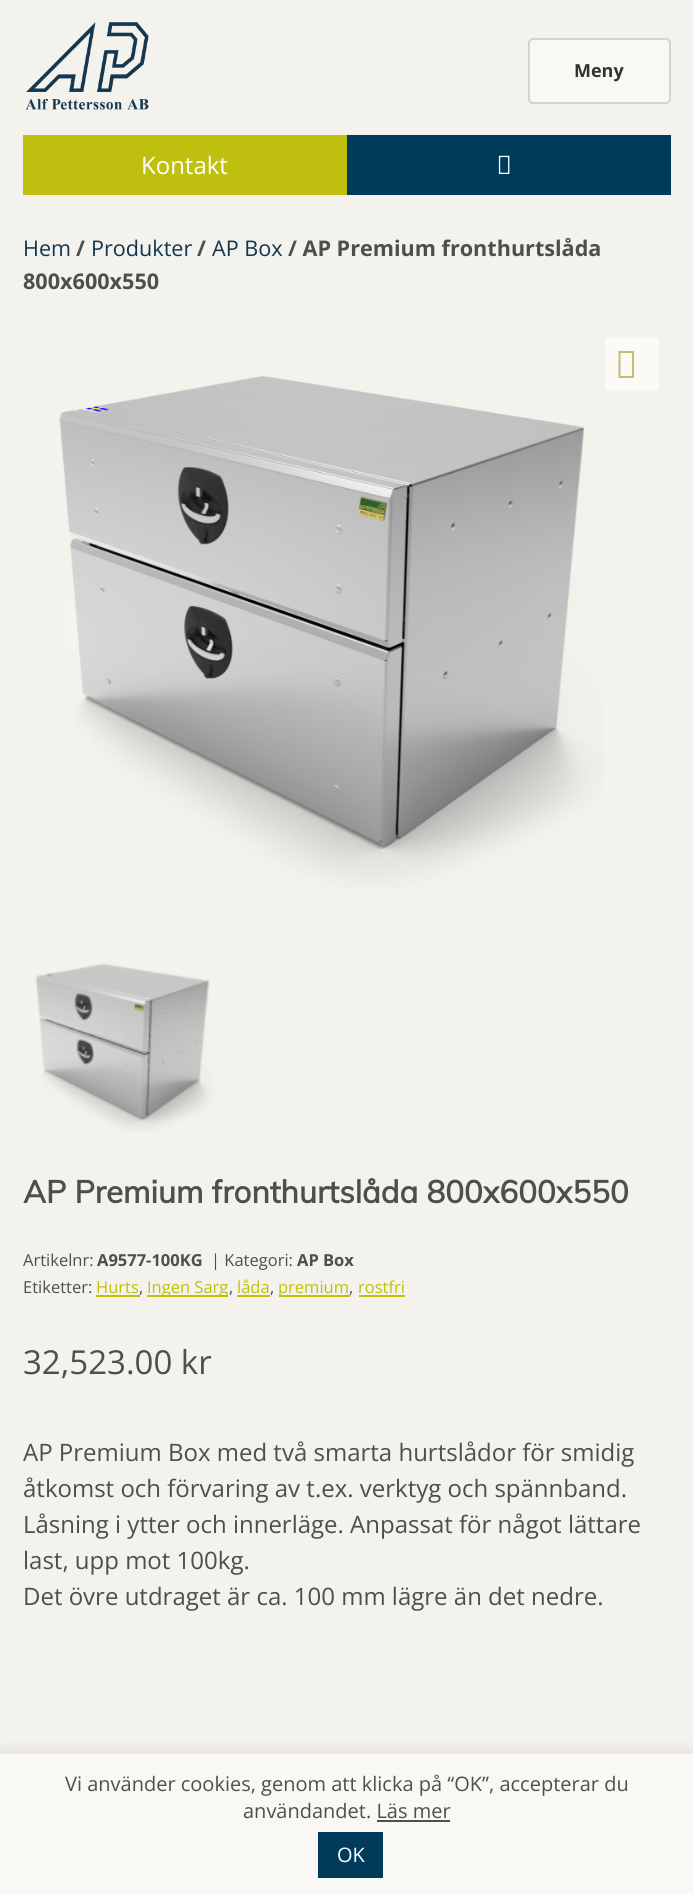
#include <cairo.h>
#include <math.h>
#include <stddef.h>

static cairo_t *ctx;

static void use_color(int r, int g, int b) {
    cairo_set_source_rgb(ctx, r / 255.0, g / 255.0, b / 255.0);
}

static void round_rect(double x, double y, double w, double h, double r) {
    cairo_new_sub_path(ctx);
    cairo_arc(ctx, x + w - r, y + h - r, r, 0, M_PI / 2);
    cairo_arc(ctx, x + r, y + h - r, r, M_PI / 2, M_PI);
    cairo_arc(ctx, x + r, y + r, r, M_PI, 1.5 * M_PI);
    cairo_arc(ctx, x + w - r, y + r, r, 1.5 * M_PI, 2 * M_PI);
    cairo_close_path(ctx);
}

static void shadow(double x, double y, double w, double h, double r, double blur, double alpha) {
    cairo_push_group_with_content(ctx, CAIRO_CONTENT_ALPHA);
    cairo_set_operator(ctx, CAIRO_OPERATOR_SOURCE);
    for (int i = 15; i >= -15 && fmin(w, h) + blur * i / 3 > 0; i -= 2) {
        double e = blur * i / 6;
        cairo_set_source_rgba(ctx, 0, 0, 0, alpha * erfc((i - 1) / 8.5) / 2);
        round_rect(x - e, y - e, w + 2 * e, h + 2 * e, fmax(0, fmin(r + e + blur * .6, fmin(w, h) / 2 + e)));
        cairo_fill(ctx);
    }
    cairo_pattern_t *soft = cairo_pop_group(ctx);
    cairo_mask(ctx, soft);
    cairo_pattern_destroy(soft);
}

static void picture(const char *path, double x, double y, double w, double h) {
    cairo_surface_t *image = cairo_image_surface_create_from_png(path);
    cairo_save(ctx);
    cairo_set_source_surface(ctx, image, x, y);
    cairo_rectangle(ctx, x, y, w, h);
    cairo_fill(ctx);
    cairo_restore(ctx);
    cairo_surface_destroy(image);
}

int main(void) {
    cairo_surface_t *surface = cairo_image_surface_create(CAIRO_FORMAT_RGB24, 693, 1894);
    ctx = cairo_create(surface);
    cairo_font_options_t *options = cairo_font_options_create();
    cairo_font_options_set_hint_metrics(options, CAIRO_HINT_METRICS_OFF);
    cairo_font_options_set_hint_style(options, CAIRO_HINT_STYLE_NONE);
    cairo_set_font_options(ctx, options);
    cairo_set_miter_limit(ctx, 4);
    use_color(244, 242, 236);
    cairo_paint(ctx);
    picture("img1.png", 25, 22, 124, 88);
    use_color(249, 248, 243);
    round_rect(529, 39, 141, 64, 4);
    cairo_fill_preserve(ctx);
    use_color(211, 211, 211);
    cairo_stroke(ctx);
    cairo_select_font_face(ctx, "Open Sans", CAIRO_FONT_SLANT_NORMAL, CAIRO_FONT_WEIGHT_BOLD);
    cairo_set_font_size(ctx, 18);
    use_color(50, 50, 49);
    cairo_move_to(ctx, 574, 77);
    cairo_show_text(ctx, "Meny");
    use_color(191, 191, 16);
    cairo_rectangle(ctx, 23, 135, 324, 60);
    cairo_fill(ctx);
    cairo_select_font_face(ctx, "Open Sans", CAIRO_FONT_SLANT_NORMAL, CAIRO_FONT_WEIGHT_NORMAL);
    cairo_set_font_size(ctx, 24);
    use_color(255, 255, 255);
    cairo_move_to(ctx, 141, 174);
    cairo_show_text(ctx, "Kontakt");
    use_color(0, 59, 92);
    cairo_rectangle(ctx, 347, 135, 324, 60);
    cairo_fill(ctx);
    picture("img2.png", 498, 155, 12, 19);
    cairo_set_font_size(ctx, 21.6);
    use_color(19, 54, 79);
    cairo_move_to(ctx, 23, 256);
    cairo_show_text(ctx, "Hem");
    cairo_select_font_face(ctx, "Open Sans", CAIRO_FONT_SLANT_NORMAL, CAIRO_FONT_WEIGHT_BOLD);
    use_color(78, 79, 76);
    cairo_move_to(ctx, 76, 256);
    cairo_show_text(ctx, "/");
    cairo_select_font_face(ctx, "Open Sans", CAIRO_FONT_SLANT_NORMAL, CAIRO_FONT_WEIGHT_NORMAL);
    use_color(19, 54, 79);
    cairo_move_to(ctx, 91, 256);
    cairo_show_text(ctx, "Produkter");
    cairo_select_font_face(ctx, "Open Sans", CAIRO_FONT_SLANT_NORMAL, CAIRO_FONT_WEIGHT_BOLD);
    use_color(78, 79, 76);
    cairo_move_to(ctx, 197, 256);
    cairo_show_text(ctx, "/");
    cairo_select_font_face(ctx, "Open Sans", CAIRO_FONT_SLANT_NORMAL, CAIRO_FONT_WEIGHT_NORMAL);
    use_color(19, 54, 79);
    cairo_move_to(ctx, 212, 256);
    cairo_show_text(ctx, "AP Box");
    cairo_select_font_face(ctx, "Open Sans", CAIRO_FONT_SLANT_NORMAL, CAIRO_FONT_WEIGHT_BOLD);
    use_color(78, 79, 76);
    cairo_move_to(ctx, 288, 256);
    cairo_show_text(ctx, "/ AP Premium fronthurtslåda");
    cairo_move_to(ctx, 23, 289);
    cairo_show_text(ctx, "800x600x550");
    use_color(251, 250, 247);
    cairo_rectangle(ctx, 605, 338, 54, 52);
    cairo_fill(ctx);
    use_color(191, 190, 113);
    cairo_new_path(ctx);
    cairo_move_to(ctx, 618.5, 378);
    cairo_line_to(ctx, 618.5, 351);
    cairo_line_to(ctx, 634, 351);
    cairo_line_to(ctx, 634, 378);
    cairo_close_path(ctx);
    cairo_move_to(ctx, 620.5, 376);
    cairo_line_to(ctx, 632, 376);
    cairo_line_to(ctx, 632, 353);
    cairo_line_to(ctx, 620.5, 353);
    cairo_close_path(ctx);
    cairo_fill(ctx);
    picture("img3.png", 59, 376, 545, 512);
    picture("img4.png", 35, 963, 180, 169);
    cairo_select_font_face(ctx, "Muli", CAIRO_FONT_SLANT_NORMAL, CAIRO_FONT_WEIGHT_BOLD);
    cairo_set_font_size(ctx, 31.25);
    use_color(78, 79, 76);
    cairo_move_to(ctx, 23, 1203);
    cairo_show_text(ctx, "AP Premium fronthurtslåda 800x600x550");
    cairo_select_font_face(ctx, "Open Sans", CAIRO_FONT_SLANT_NORMAL, CAIRO_FONT_WEIGHT_NORMAL);
    cairo_set_font_size(ctx, 16.5);
    cairo_move_to(ctx, 23, 1266);
    cairo_show_text(ctx, "Artikelnr:");
    cairo_select_font_face(ctx, "Open Sans", CAIRO_FONT_SLANT_NORMAL, CAIRO_FONT_WEIGHT_BOLD);
    cairo_move_to(ctx, 97, 1266);
    cairo_show_text(ctx, "A9577-100KG");
    cairo_select_font_face(ctx, "Open Sans", CAIRO_FONT_SLANT_NORMAL, CAIRO_FONT_WEIGHT_NORMAL);
    cairo_move_to(ctx, 211, 1266);
    cairo_show_text(ctx, "| Kategori:");
    cairo_select_font_face(ctx, "Open Sans", CAIRO_FONT_SLANT_NORMAL, CAIRO_FONT_WEIGHT_BOLD);
    cairo_move_to(ctx, 297, 1266);
    cairo_show_text(ctx, "AP Box");
    cairo_select_font_face(ctx, "Open Sans", CAIRO_FONT_SLANT_NORMAL, CAIRO_FONT_WEIGHT_NORMAL);
    cairo_move_to(ctx, 23, 1293);
    cairo_show_text(ctx, "Etiketter:");
    use_color(191, 192, 14);
    cairo_move_to(ctx, 96, 1293);
    cairo_show_text(ctx, "Hurts");
    cairo_rectangle(ctx, 96, 1295, 44, 2);
    cairo_fill(ctx);
    use_color(78, 79, 76);
    cairo_move_to(ctx, 139, 1293);
    cairo_show_text(ctx, ",");
    use_color(191, 192, 14);
    cairo_rectangle(ctx, 147, 1295, 81, 2);
    cairo_fill(ctx);
    cairo_move_to(ctx, 147, 1293);
    cairo_show_text(ctx, "Ingen Sarg");
    use_color(78, 79, 76);
    cairo_move_to(ctx, 229, 1293);
    cairo_show_text(ctx, ",");
    use_color(191, 192, 14);
    cairo_move_to(ctx, 237, 1293);
    cairo_show_text(ctx, "låda");
    cairo_rectangle(ctx, 237, 1295, 33, 2);
    cairo_fill(ctx);
    use_color(78, 79, 76);
    cairo_move_to(ctx, 270, 1293);
    cairo_show_text(ctx, ",");
    use_color(191, 192, 14);
    cairo_rectangle(ctx, 279, 1295, 71, 2);
    cairo_fill(ctx);
    cairo_move_to(ctx, 278, 1293);
    cairo_show_text(ctx, "premium");
    use_color(78, 79, 76);
    cairo_move_to(ctx, 349, 1293);
    cairo_show_text(ctx, ",");
    use_color(191, 192, 14);
    cairo_move_to(ctx, 358, 1293);
    cairo_show_text(ctx, "rostfri");
    cairo_rectangle(ctx, 359, 1295, 46, 2);
    cairo_fill(ctx);
    cairo_set_font_size(ctx, 33);
    use_color(78, 79, 76);
    cairo_move_to(ctx, 23, 1374);
    cairo_show_text(ctx, "32,523.00 kr");
    cairo_set_font_size(ctx, 24);
    cairo_move_to(ctx, 23, 1461);
    cairo_show_text(ctx, "AP Premium Box med två smarta hurtslådor för smidig");
    cairo_move_to(ctx, 23, 1497);
    cairo_show_text(ctx, "åtkomst och förvaring av t.ex. verktyg och spännband.");
    cairo_move_to(ctx, 23, 1533);
    cairo_show_text(ctx, "Låsning i ytter och innerläge. Anpassat för något lättare");
    cairo_move_to(ctx, 23, 1569);
    cairo_show_text(ctx, "last, upp mot 100kg.");
    cairo_move_to(ctx, 23, 1605);
    cairo_show_text(ctx, "Det övre utdraget är ca. 100 mm lägre än det nedre.");
    use_color(172, 171, 171);
    shadow(0, 1752, 693, 141, 0, 7.5, 0.3);
    use_color(249, 248, 244);
    cairo_rectangle(ctx, 0, 1754, 693, 140);
    cairo_fill(ctx);
    cairo_set_font_size(ctx, 20);
    use_color(78, 79, 76);
    cairo_move_to(ctx, 65, 1791);
    cairo_show_text(ctx, "Vi använder cookies, genom att klicka på “OK”, accepterar du");
    cairo_move_to(ctx, 243, 1818);
    cairo_show_text(ctx, "användandet. Läs mer");
    use_color(79, 79, 76);
    cairo_rectangle(ctx, 377, 1820, 73, 2);
    cairo_fill(ctx);
    use_color(0, 59, 92);
    cairo_rectangle(ctx, 318, 1832, 65, 46);
    cairo_fill(ctx);
    use_color(255, 255, 255);
    cairo_move_to(ctx, 337, 1862);
    cairo_show_text(ctx, "OK");
    cairo_surface_write_to_png(surface, "result.png");
    cairo_font_options_destroy(options);
    cairo_destroy(ctx);
    cairo_surface_destroy(surface);
    return 0;
}
